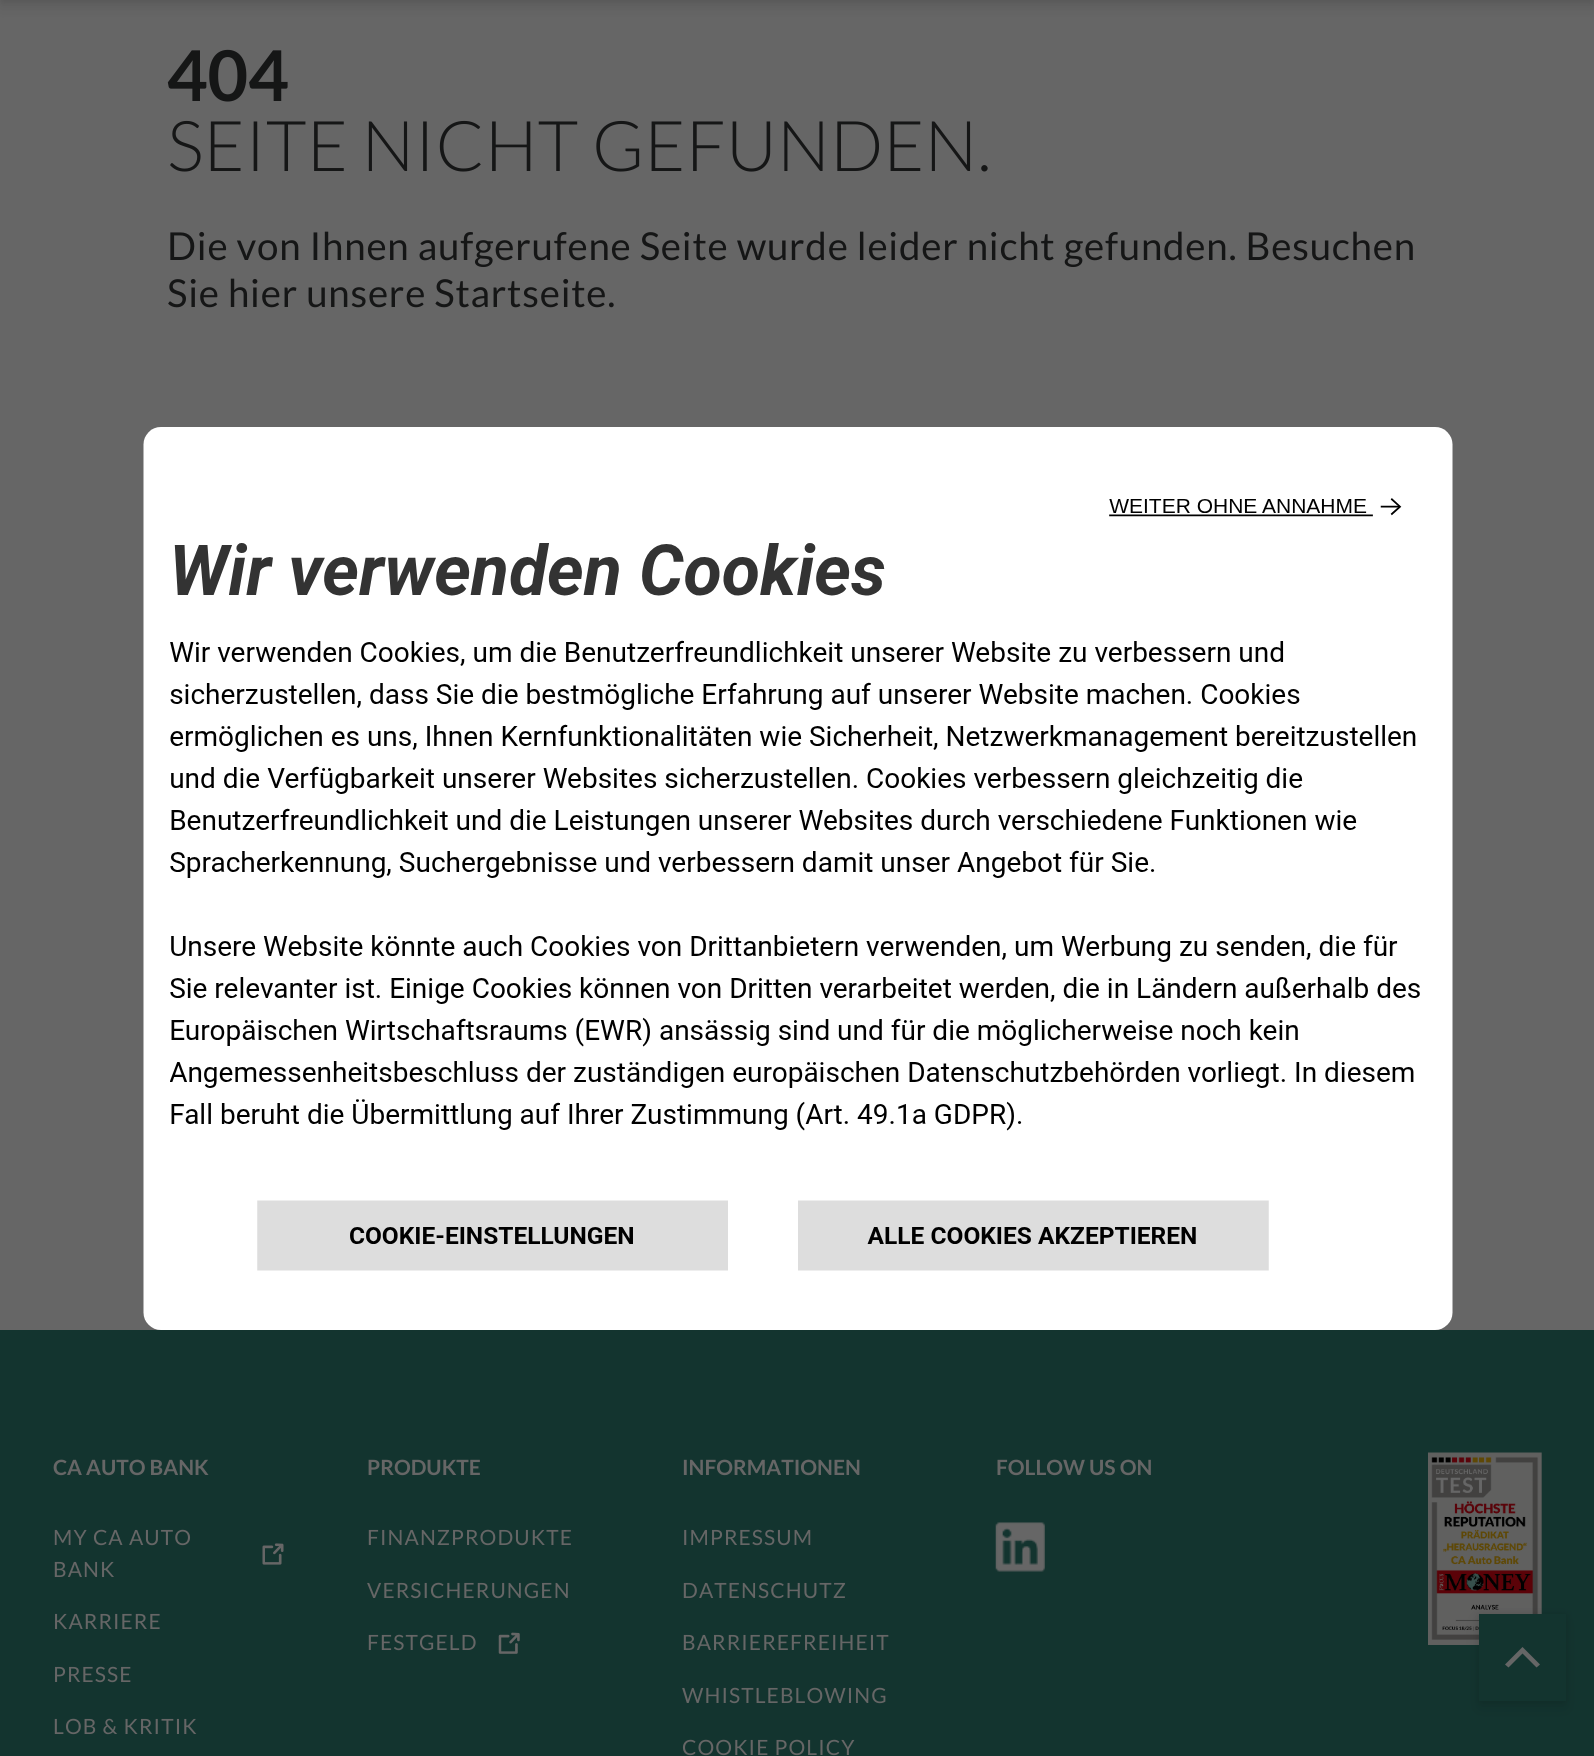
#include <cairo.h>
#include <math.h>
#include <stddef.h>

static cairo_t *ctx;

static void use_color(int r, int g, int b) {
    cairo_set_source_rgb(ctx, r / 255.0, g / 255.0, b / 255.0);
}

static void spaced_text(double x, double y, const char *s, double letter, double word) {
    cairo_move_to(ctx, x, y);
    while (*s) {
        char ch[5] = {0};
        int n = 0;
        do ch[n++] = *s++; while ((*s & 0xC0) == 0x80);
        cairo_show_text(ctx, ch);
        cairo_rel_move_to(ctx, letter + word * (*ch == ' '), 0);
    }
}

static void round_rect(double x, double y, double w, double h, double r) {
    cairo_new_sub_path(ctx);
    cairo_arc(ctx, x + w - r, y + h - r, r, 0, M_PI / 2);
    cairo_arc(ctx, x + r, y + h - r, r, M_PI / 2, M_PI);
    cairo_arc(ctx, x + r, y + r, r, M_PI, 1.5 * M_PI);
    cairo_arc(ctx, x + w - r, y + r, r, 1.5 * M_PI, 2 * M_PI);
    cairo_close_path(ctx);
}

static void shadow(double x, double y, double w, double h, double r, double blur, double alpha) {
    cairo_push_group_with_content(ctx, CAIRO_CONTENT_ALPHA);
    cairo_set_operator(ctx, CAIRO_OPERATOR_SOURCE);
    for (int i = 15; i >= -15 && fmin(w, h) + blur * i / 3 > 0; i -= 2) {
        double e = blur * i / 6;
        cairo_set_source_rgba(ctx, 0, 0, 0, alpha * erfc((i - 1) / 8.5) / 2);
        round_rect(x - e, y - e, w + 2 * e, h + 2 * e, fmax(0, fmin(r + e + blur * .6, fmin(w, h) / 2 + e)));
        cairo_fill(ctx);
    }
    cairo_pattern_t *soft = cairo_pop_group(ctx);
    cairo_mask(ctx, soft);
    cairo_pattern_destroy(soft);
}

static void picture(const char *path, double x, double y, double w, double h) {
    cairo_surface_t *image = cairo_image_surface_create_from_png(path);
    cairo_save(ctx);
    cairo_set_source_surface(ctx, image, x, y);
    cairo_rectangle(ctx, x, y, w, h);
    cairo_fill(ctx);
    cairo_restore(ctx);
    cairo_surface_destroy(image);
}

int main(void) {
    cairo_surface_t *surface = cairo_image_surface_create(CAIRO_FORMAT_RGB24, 1594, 1756);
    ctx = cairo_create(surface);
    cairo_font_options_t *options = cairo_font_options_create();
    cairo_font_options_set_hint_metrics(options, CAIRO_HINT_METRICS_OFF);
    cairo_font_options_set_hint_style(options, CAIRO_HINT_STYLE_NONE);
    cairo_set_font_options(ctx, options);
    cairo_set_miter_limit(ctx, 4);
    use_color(255, 255, 255);
    cairo_paint(ctx);
    use_color(0, 0, 0);
    shadow(0, -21, 1594, 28, 0, 7, 0.1);
    shadow(0, -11, 1594, 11, 0, 3.5, 0.1);
    cairo_select_font_face(ctx, "Lato", CAIRO_FONT_SLANT_NORMAL, CAIRO_FONT_WEIGHT_BOLD);
    cairo_set_font_size(ctx, 70);
    use_color(53, 54, 56);
    cairo_move_to(ctx, 167, 101);
    cairo_show_text(ctx, "404");
    cairo_select_font_face(ctx, "Lato Light", CAIRO_FONT_SLANT_NORMAL, CAIRO_FONT_WEIGHT_NORMAL);
    cairo_move_to(ctx, 167, 171);
    cairo_show_text(ctx, "SEITE NICHT GEFUNDEN.");
    cairo_select_font_face(ctx, "Lato", CAIRO_FONT_SLANT_NORMAL, CAIRO_FONT_WEIGHT_NORMAL);
    cairo_set_font_size(ctx, 38.5);
    spaced_text(167, 260, "Die von Ihnen aufgerufene Seite wurde leider nicht gefunden. Besuchen", 0.77, 0);
    spaced_text(167, 307, "Sie hier unsere Startseite.", 0.77, 0);
    use_color(48, 130, 118);
    cairo_rectangle(ctx, 0, 1330, 1594, 426);
    cairo_fill(ctx);
    picture("img5.png", 1428, 1452, 114, 193);
    use_color(0, 0, 0);
    shadow(1479, 1621, 87, 87, 0, 7, 0.1);
    shadow(1479, 1614, 87, 87, 0, 3.5, 0.1);
    use_color(48, 130, 118);
    cairo_rectangle(ctx, 1479, 1614, 87, 87);
    cairo_fill(ctx);
    use_color(255, 255, 255);
    cairo_new_path(ctx);
    cairo_move_to(ctx, 1540, 1664.5);
    cairo_line_to(ctx, 1536.5, 1667.5);
    cairo_line_to(ctx, 1522.5, 1653.5);
    cairo_line_to(ctx, 1508.5, 1667.5);
    cairo_line_to(ctx, 1505, 1664.5);
    cairo_line_to(ctx, 1522.5, 1647);
    cairo_close_path(ctx);
    cairo_fill(ctx);
    cairo_select_font_face(ctx, "Lato", CAIRO_FONT_SLANT_NORMAL, CAIRO_FONT_WEIGHT_BOLD);
    cairo_set_font_size(ctx, 21);
    cairo_move_to(ctx, 53, 1475);
    cairo_show_text(ctx, "CA AUTO BANK");
    cairo_select_font_face(ctx, "Lato", CAIRO_FONT_SLANT_NORMAL, CAIRO_FONT_WEIGHT_NORMAL);
    spaced_text(53, 1545, "MY CA AUTO", 1.1, 0);
    spaced_text(53, 1577, "BANK", 1.1, 0);
    picture("img2.png", 262, 1543, 22, 22);
    spaced_text(53, 1629, "KARRIERE", 1.1, 0);
    spaced_text(53, 1682, "PRESSE", 1.1, 0);
    spaced_text(53, 1734, "LOB & KRITIK", 1.1, 0);
    cairo_select_font_face(ctx, "Lato", CAIRO_FONT_SLANT_NORMAL, CAIRO_FONT_WEIGHT_BOLD);
    cairo_move_to(ctx, 367, 1475);
    cairo_show_text(ctx, "PRODUKTE");
    cairo_select_font_face(ctx, "Lato", CAIRO_FONT_SLANT_NORMAL, CAIRO_FONT_WEIGHT_NORMAL);
    spaced_text(367, 1545, "FINANZPRODUKTE", 1.1, 0);
    spaced_text(367, 1598, "VERSICHERUNGEN", 1.1, 0);
    spaced_text(367, 1650, "FESTGELD", 1.1, 0);
    picture("img3.png", 498, 1632, 22, 22);
    cairo_select_font_face(ctx, "Lato", CAIRO_FONT_SLANT_NORMAL, CAIRO_FONT_WEIGHT_BOLD);
    cairo_move_to(ctx, 682, 1475);
    cairo_show_text(ctx, "INFORMATIONEN");
    cairo_select_font_face(ctx, "Lato", CAIRO_FONT_SLANT_NORMAL, CAIRO_FONT_WEIGHT_NORMAL);
    spaced_text(682, 1545, "IMPRESSUM", 1.1, 0);
    spaced_text(682, 1598, "DATENSCHUTZ", 1.1, 0);
    spaced_text(682, 1650, "BARRIEREFREIHEIT", 1.1, 0);
    spaced_text(682, 1703, "WHISTLEBLOWING", 1.1, 0);
    spaced_text(682, 1755, "COOKIE POLICY", 1.1, 0);
    cairo_select_font_face(ctx, "Lato", CAIRO_FONT_SLANT_NORMAL, CAIRO_FONT_WEIGHT_BOLD);
    cairo_move_to(ctx, 996, 1475);
    cairo_show_text(ctx, "FOLLOW US ON");
    picture("img4.png", 995, 1522, 50, 50);
    picture("img1.png", 0, 0, 1594, 1756);
    cairo_surface_write_to_png(surface, "result.png");
    cairo_font_options_destroy(options);
    cairo_destroy(ctx);
    cairo_surface_destroy(surface);
    return 0;
}
